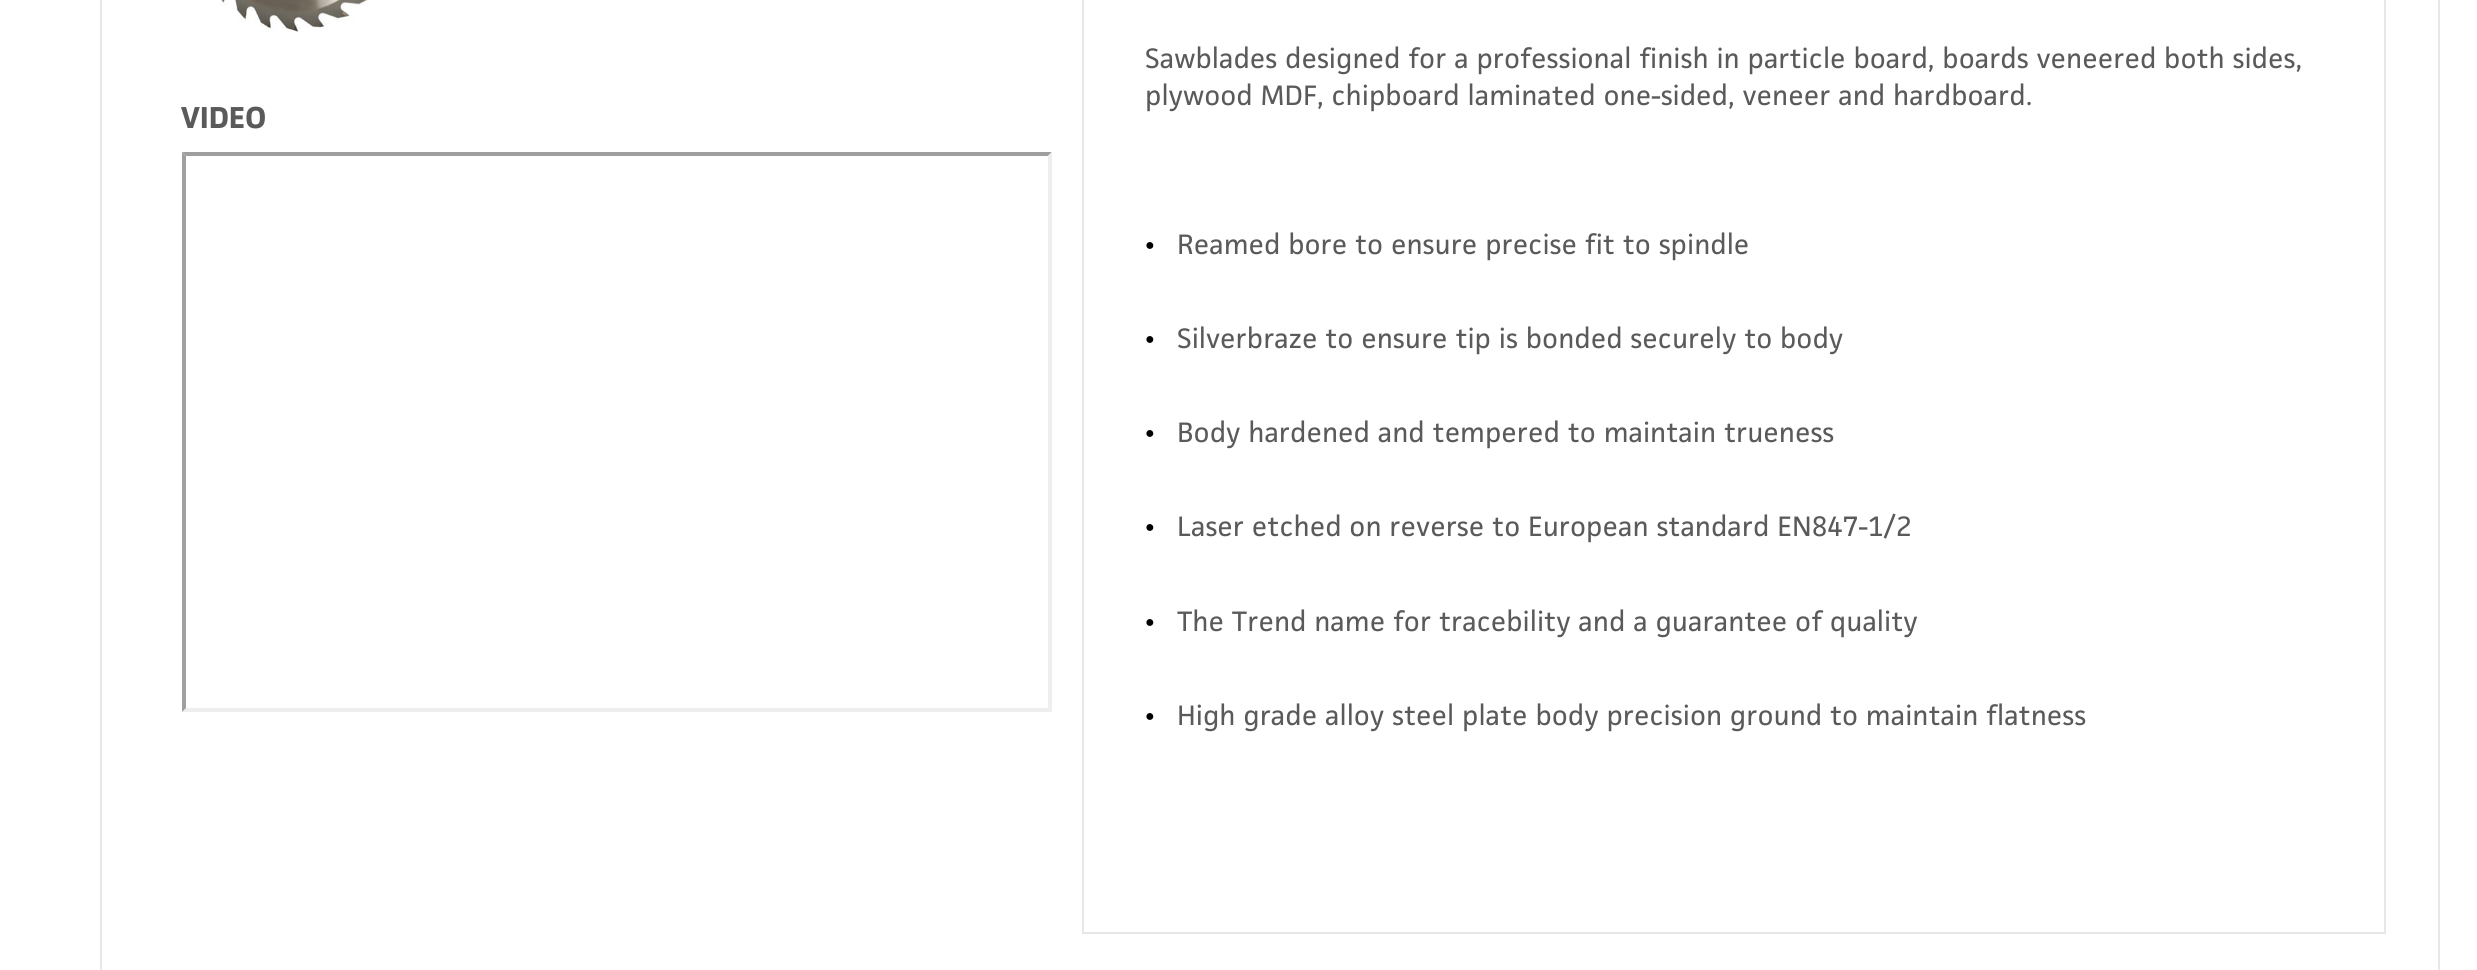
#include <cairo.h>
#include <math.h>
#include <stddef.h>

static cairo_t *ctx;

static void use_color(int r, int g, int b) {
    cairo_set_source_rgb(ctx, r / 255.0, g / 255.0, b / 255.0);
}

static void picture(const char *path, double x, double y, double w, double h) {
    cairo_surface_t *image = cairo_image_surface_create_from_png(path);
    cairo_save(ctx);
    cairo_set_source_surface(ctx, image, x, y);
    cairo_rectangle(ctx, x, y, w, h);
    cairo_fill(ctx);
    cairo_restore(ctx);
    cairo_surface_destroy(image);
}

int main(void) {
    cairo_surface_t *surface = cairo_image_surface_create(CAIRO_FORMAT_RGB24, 2477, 970);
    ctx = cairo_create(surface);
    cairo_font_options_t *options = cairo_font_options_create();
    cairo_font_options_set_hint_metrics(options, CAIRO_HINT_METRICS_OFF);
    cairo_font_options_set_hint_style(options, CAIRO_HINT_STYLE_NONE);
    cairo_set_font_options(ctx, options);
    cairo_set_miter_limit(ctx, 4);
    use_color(255, 255, 255);
    cairo_paint(ctx);
    cairo_rectangle(ctx, 101, -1, 2338, 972);
    use_color(231, 231, 231);
    cairo_stroke(ctx);
    picture("img1.png", 220, 0, 150, 33);
    cairo_select_font_face(ctx, "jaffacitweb", CAIRO_FONT_SLANT_NORMAL, CAIRO_FONT_WEIGHT_BOLD);
    cairo_set_font_size(ctx, 28);
    use_color(90, 90, 90);
    cairo_move_to(ctx, 181, 128);
    cairo_show_text(ctx, "VIDEO");
    use_color(159, 159, 159);
    cairo_new_path(ctx);
    cairo_move_to(ctx, 182, 152);
    cairo_line_to(ctx, 1052, 152);
    cairo_line_to(ctx, 1048, 156);
    cairo_line_to(ctx, 186, 156);
    cairo_close_path(ctx);
    cairo_fill(ctx);
    use_color(238, 238, 238);
    cairo_new_path(ctx);
    cairo_move_to(ctx, 1052, 152);
    cairo_line_to(ctx, 1052, 712);
    cairo_line_to(ctx, 1048, 708);
    cairo_line_to(ctx, 1048, 156);
    cairo_close_path(ctx);
    cairo_fill(ctx);
    cairo_new_path(ctx);
    cairo_move_to(ctx, 1052, 712);
    cairo_line_to(ctx, 182, 712);
    cairo_line_to(ctx, 186, 708);
    cairo_line_to(ctx, 1048, 708);
    cairo_close_path(ctx);
    cairo_fill(ctx);
    use_color(159, 159, 159);
    cairo_new_path(ctx);
    cairo_move_to(ctx, 182, 712);
    cairo_line_to(ctx, 182, 152);
    cairo_line_to(ctx, 186, 156);
    cairo_line_to(ctx, 186, 708);
    cairo_close_path(ctx);
    cairo_fill(ctx);
    cairo_rectangle(ctx, 1083, -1, 1302, 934);
    use_color(231, 231, 231);
    cairo_stroke(ctx);
    cairo_select_font_face(ctx, "jaffacitweb", CAIRO_FONT_SLANT_NORMAL, CAIRO_FONT_WEIGHT_NORMAL);
    cairo_set_font_size(ctx, 26);
    use_color(90, 90, 90);
    cairo_move_to(ctx, 1145, 68);
    cairo_show_text(ctx, "Sawblades designed for a professional finish in particle board, boards veneered both sides,");
    cairo_move_to(ctx, 1145, 105);
    cairo_show_text(ctx, "plywood MDF, chipboard laminated one-sided, veneer and hardboard.");
    cairo_select_font_face(ctx, "Liberation Sans", CAIRO_FONT_SLANT_NORMAL, CAIRO_FONT_WEIGHT_BOLD);
    cairo_set_font_size(ctx, 16);
    use_color(0, 0, 0);
    cairo_move_to(ctx, 1145, 250);
    cairo_show_text(ctx, "●");
    cairo_select_font_face(ctx, "jaffacitweb", CAIRO_FONT_SLANT_NORMAL, CAIRO_FONT_WEIGHT_NORMAL);
    cairo_set_font_size(ctx, 26);
    use_color(90, 90, 90);
    cairo_move_to(ctx, 1177, 254);
    cairo_show_text(ctx, "Reamed bore to ensure precise fit to spindle");
    cairo_select_font_face(ctx, "Liberation Sans", CAIRO_FONT_SLANT_NORMAL, CAIRO_FONT_WEIGHT_BOLD);
    cairo_set_font_size(ctx, 16);
    use_color(0, 0, 0);
    cairo_move_to(ctx, 1145, 344);
    cairo_show_text(ctx, "●");
    cairo_select_font_face(ctx, "jaffacitweb", CAIRO_FONT_SLANT_NORMAL, CAIRO_FONT_WEIGHT_NORMAL);
    cairo_set_font_size(ctx, 26);
    use_color(90, 90, 90);
    cairo_move_to(ctx, 1177, 348);
    cairo_show_text(ctx, "Silverbraze to ensure tip is bonded securely to body");
    cairo_select_font_face(ctx, "Liberation Sans", CAIRO_FONT_SLANT_NORMAL, CAIRO_FONT_WEIGHT_BOLD);
    cairo_set_font_size(ctx, 16);
    use_color(0, 0, 0);
    cairo_move_to(ctx, 1145, 438);
    cairo_show_text(ctx, "●");
    cairo_select_font_face(ctx, "jaffacitweb", CAIRO_FONT_SLANT_NORMAL, CAIRO_FONT_WEIGHT_NORMAL);
    cairo_set_font_size(ctx, 26);
    use_color(90, 90, 90);
    cairo_move_to(ctx, 1177, 442);
    cairo_show_text(ctx, "Body hardened and tempered to maintain trueness");
    cairo_select_font_face(ctx, "Liberation Sans", CAIRO_FONT_SLANT_NORMAL, CAIRO_FONT_WEIGHT_BOLD);
    cairo_set_font_size(ctx, 16);
    use_color(0, 0, 0);
    cairo_move_to(ctx, 1145, 532);
    cairo_show_text(ctx, "●");
    cairo_select_font_face(ctx, "jaffacitweb", CAIRO_FONT_SLANT_NORMAL, CAIRO_FONT_WEIGHT_NORMAL);
    cairo_set_font_size(ctx, 26);
    use_color(90, 90, 90);
    cairo_move_to(ctx, 1177, 536);
    cairo_show_text(ctx, "Laser etched on reverse to European standard EN847-1/2");
    cairo_select_font_face(ctx, "Liberation Sans", CAIRO_FONT_SLANT_NORMAL, CAIRO_FONT_WEIGHT_BOLD);
    cairo_set_font_size(ctx, 16);
    use_color(0, 0, 0);
    cairo_move_to(ctx, 1145, 627);
    cairo_show_text(ctx, "●");
    cairo_select_font_face(ctx, "jaffacitweb", CAIRO_FONT_SLANT_NORMAL, CAIRO_FONT_WEIGHT_NORMAL);
    cairo_set_font_size(ctx, 26);
    use_color(90, 90, 90);
    cairo_move_to(ctx, 1177, 631);
    cairo_show_text(ctx, "The Trend name for tracebility and a guarantee of quality");
    cairo_select_font_face(ctx, "Liberation Sans", CAIRO_FONT_SLANT_NORMAL, CAIRO_FONT_WEIGHT_BOLD);
    cairo_set_font_size(ctx, 16);
    use_color(0, 0, 0);
    cairo_move_to(ctx, 1145, 721);
    cairo_show_text(ctx, "●");
    cairo_select_font_face(ctx, "jaffacitweb", CAIRO_FONT_SLANT_NORMAL, CAIRO_FONT_WEIGHT_NORMAL);
    cairo_set_font_size(ctx, 26);
    use_color(90, 90, 90);
    cairo_move_to(ctx, 1177, 725);
    cairo_show_text(ctx, "High grade alloy steel plate body precision ground to maintain flatness");
    cairo_surface_write_to_png(surface, "result.png");
    cairo_font_options_destroy(options);
    cairo_destroy(ctx);
    cairo_surface_destroy(surface);
    return 0;
}
